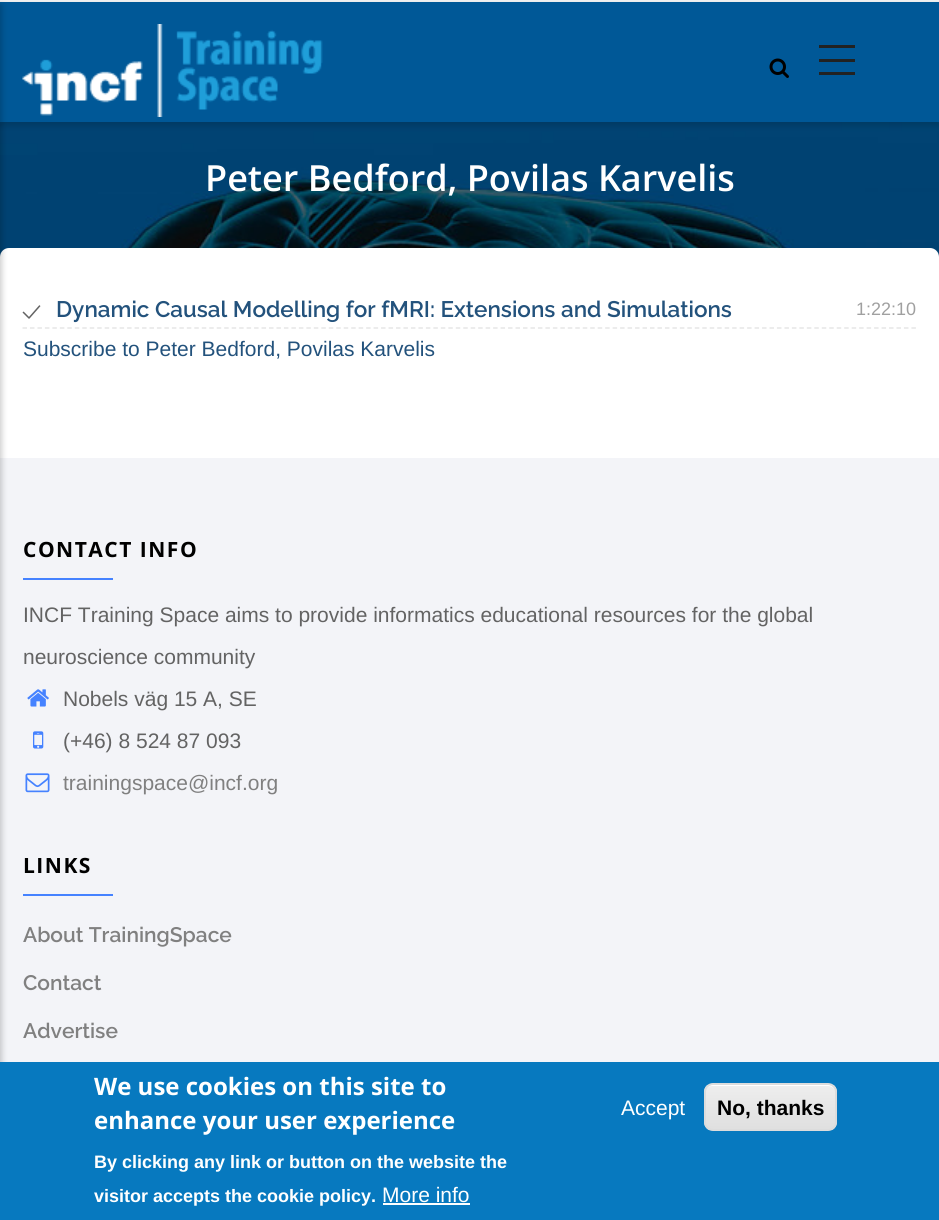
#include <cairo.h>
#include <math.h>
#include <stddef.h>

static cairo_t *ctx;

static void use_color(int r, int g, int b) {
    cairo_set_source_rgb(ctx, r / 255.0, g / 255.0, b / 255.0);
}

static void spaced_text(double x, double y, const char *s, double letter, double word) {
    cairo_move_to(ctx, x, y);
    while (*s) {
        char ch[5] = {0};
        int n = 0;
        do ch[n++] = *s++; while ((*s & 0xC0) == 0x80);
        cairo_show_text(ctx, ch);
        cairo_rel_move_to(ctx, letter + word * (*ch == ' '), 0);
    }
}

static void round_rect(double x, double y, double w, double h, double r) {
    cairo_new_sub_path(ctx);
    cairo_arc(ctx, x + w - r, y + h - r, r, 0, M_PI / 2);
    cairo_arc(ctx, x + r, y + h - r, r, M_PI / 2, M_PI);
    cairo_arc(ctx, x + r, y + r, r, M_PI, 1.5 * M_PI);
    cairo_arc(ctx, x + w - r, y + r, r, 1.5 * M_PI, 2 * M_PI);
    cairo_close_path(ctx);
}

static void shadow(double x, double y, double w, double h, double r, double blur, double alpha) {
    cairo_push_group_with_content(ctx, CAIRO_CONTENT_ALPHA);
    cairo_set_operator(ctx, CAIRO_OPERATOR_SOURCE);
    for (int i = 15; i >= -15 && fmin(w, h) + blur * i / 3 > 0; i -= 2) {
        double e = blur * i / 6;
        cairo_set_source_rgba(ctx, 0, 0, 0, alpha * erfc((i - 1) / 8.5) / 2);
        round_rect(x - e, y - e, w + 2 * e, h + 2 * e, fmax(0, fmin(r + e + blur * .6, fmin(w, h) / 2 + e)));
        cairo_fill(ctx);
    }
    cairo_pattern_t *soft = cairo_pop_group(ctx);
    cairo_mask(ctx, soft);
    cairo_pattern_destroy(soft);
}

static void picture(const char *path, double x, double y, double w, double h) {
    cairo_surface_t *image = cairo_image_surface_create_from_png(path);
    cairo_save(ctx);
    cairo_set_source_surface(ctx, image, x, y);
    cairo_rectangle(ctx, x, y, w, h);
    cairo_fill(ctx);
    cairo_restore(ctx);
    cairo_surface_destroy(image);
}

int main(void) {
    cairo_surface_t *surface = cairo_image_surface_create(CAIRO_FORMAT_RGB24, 939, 1220);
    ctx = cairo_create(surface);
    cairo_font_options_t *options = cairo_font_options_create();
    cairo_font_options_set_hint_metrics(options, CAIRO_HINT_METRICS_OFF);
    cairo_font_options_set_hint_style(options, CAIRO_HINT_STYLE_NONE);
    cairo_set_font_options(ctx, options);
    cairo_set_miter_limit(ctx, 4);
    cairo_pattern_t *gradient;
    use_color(239, 239, 239);
    cairo_paint(ctx);
    use_color(255, 255, 255);
    cairo_rectangle(ctx, 0, 419, 939, 39);
    cairo_fill(ctx);
    picture("img3.png", 0, 122, 939, 135);
    use_color(0, 0, 0);
    shadow(0, 6, 939, 120, 0, 3, 0.14);
    use_color(0, 88, 151);
    cairo_rectangle(ctx, 0, 2, 939, 120);
    cairo_fill(ctx);
    use_color(255, 255, 255);
    round_rect(0, 248, 939, 180, 9);
    cairo_fill(ctx);
    use_color(243, 244, 248);
    cairo_rectangle(ctx, 0, 458, 939, 604);
    cairo_fill(ctx);
    use_color(0, 0, 0);
    shadow(-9, 5, 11, 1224, 0, 3, 0.2);
    picture("img1.png", 769, 58, 20, 20);
    use_color(34, 34, 34);
    cairo_rectangle(ctx, 819, 45, 36, 3);
    cairo_fill(ctx);
    cairo_rectangle(ctx, 819, 59, 36, 3);
    cairo_fill(ctx);
    cairo_rectangle(ctx, 819, 72, 36, 3);
    cairo_fill(ctx);
    picture("img2.png", 22, 24, 301, 93);
    cairo_select_font_face(ctx, "Open Sans SemiBold", CAIRO_FONT_SLANT_NORMAL, CAIRO_FONT_WEIGHT_NORMAL);
    cairo_set_font_size(ctx, 36);
    use_color(255, 255, 255);
    cairo_move_to(ctx, 205, 191);
    cairo_show_text(ctx, "Peter Bedford, Povilas Karvelis");
    cairo_new_path(ctx);
    cairo_move_to(ctx, 22.5, 328);
    cairo_line_to(ctx, 916.5, 328);
    use_color(230, 230, 230);
    cairo_set_line_width(ctx, 1.5);
    cairo_set_dash(ctx, (double[]){4.5, 2.97}, 2, 0);
    cairo_stroke(ctx);
    picture("img4.png", 22, 305, 19, 14);
    cairo_select_font_face(ctx, "Raleway SemiBold", CAIRO_FONT_SLANT_NORMAL, CAIRO_FONT_WEIGHT_NORMAL);
    cairo_set_font_size(ctx, 22.5);
    use_color(35, 82, 124);
    cairo_move_to(ctx, 56, 317);
    cairo_show_text(ctx, "Dynamic Causal Modelling for fMRI: Extensions and Simulations");
    cairo_select_font_face(ctx, "Liberation Sans", CAIRO_FONT_SLANT_NORMAL, CAIRO_FONT_WEIGHT_NORMAL);
    cairo_set_font_size(ctx, 18);
    use_color(160, 160, 160);
    cairo_move_to(ctx, 856, 315);
    cairo_show_text(ctx, "1:22:10");
    cairo_set_font_size(ctx, 21);
    use_color(35, 82, 124);
    cairo_move_to(ctx, 23, 356);
    cairo_show_text(ctx, "Subscribe to Peter Bedford, Povilas Karvelis");
    cairo_select_font_face(ctx, "Open Sans", CAIRO_FONT_SLANT_NORMAL, CAIRO_FONT_WEIGHT_BOLD);
    use_color(0, 0, 0);
    spaced_text(23, 557, "CONTACT INFO", 1.5, 0);
    use_color(69, 130, 255);
    cairo_rectangle(ctx, 23, 578, 90, 2);
    cairo_fill(ctx);
    cairo_select_font_face(ctx, "Liberation Sans", CAIRO_FONT_SLANT_NORMAL, CAIRO_FONT_WEIGHT_NORMAL);
    use_color(99, 99, 99);
    cairo_move_to(ctx, 23, 622);
    cairo_show_text(ctx, "INCF Training Space aims to provide informatics educational resources for the global");
    cairo_move_to(ctx, 23, 664);
    cairo_show_text(ctx, "neuroscience community");
    picture("img5.png", 27, 689, 22, 18);
    cairo_move_to(ctx, 63, 706);
    cairo_show_text(ctx, "Nobels väg 15 A, SE");
    picture("img6.png", 33, 731, 11, 18);
    cairo_move_to(ctx, 63, 748);
    cairo_show_text(ctx, "(+46) 8 524 87 093");
    picture("img7.png", 25, 773, 25, 20);
    use_color(128, 128, 128);
    cairo_move_to(ctx, 63, 790);
    cairo_show_text(ctx, "trainingspace@incf.org");
    cairo_select_font_face(ctx, "Open Sans", CAIRO_FONT_SLANT_NORMAL, CAIRO_FONT_WEIGHT_BOLD);
    use_color(0, 0, 0);
    spaced_text(23, 873, "LINKS", 1.5, 0);
    use_color(69, 130, 255);
    cairo_rectangle(ctx, 23, 894, 90, 2);
    cairo_fill(ctx);
    cairo_select_font_face(ctx, "Raleway SemiBold", CAIRO_FONT_SLANT_NORMAL, CAIRO_FONT_WEIGHT_NORMAL);
    use_color(128, 128, 128);
    cairo_move_to(ctx, 23, 942);
    cairo_show_text(ctx, "About TrainingSpace");
    cairo_move_to(ctx, 23, 990);
    cairo_show_text(ctx, "Contact");
    cairo_move_to(ctx, 23, 1038);
    cairo_show_text(ctx, "Advertise");
    use_color(7, 121, 191);
    cairo_rectangle(ctx, 0, 1062, 939, 158);
    cairo_fill(ctx);
    cairo_select_font_face(ctx, "Open Sans", CAIRO_FONT_SLANT_NORMAL, CAIRO_FONT_WEIGHT_BOLD);
    cairo_set_font_size(ctx, 24);
    use_color(255, 255, 255);
    cairo_move_to(ctx, 94, 1095);
    cairo_show_text(ctx, "We use cookies on this site to");
    cairo_move_to(ctx, 94, 1129);
    cairo_show_text(ctx, "enhance your user experience");
    cairo_select_font_face(ctx, "Liberation Sans", CAIRO_FONT_SLANT_NORMAL, CAIRO_FONT_WEIGHT_BOLD);
    cairo_set_font_size(ctx, 18);
    cairo_move_to(ctx, 94, 1168);
    cairo_show_text(ctx, "By clicking any link or button on the website the");
    cairo_move_to(ctx, 94, 1202);
    cairo_show_text(ctx, "visitor accepts the cookie policy.");
    cairo_select_font_face(ctx, "Liberation Sans", CAIRO_FONT_SLANT_NORMAL, CAIRO_FONT_WEIGHT_NORMAL);
    cairo_set_font_size(ctx, 21);
    cairo_move_to(ctx, 382, 1202);
    cairo_show_text(ctx, "More info");
    cairo_rectangle(ctx, 383, 1203, 87, 2);
    cairo_fill(ctx);
    cairo_move_to(ctx, 621, 1115);
    cairo_show_text(ctx, "Accept");
    cairo_save(ctx);
    round_rect(704, 1083, 133, 48, 9);
    cairo_clip(ctx);
    gradient = cairo_pattern_create_linear(770, 1085, 770, 1130);
    cairo_pattern_add_color_stop_rgba(gradient, 0.05, 0.929, 0.929, 0.929, 1);
    cairo_pattern_add_color_stop_rgba(gradient, 1, 0.875, 0.875, 0.875, 1);
    cairo_set_source(ctx, gradient);
    cairo_pattern_destroy(gradient);
    cairo_rectangle(ctx, 704, 1085, 133, 45);
    cairo_fill(ctx);
    cairo_restore(ctx);
    cairo_new_path(ctx);
    cairo_move_to(ctx, 712, 1086);
    cairo_line_to(ctx, 828, 1086);
    cairo_curve_to(ctx, 832, 1086, 836, 1089, 836, 1094);
    cairo_curve_to(ctx, 836, 1080, 817, 1085, 809, 1085);
    cairo_line_to(ctx, 732, 1085);
    cairo_curve_to(ctx, 724, 1085, 705, 1080, 705, 1094);
    cairo_curve_to(ctx, 705, 1089, 708, 1086, 712, 1086);
    cairo_close_path(ctx);
    cairo_fill(ctx);
    round_rect(705, 1084, 131, 46, 8);
    use_color(220, 220, 220);
    cairo_set_line_width(ctx, 2);
    cairo_set_dash(ctx, NULL, 0, 0);
    cairo_stroke(ctx);
    cairo_select_font_face(ctx, "Liberation Sans", CAIRO_FONT_SLANT_NORMAL, CAIRO_FONT_WEIGHT_BOLD);
    use_color(0, 0, 0);
    cairo_move_to(ctx, 717, 1115);
    cairo_show_text(ctx, "No, thanks");
    cairo_surface_write_to_png(surface, "result.png");
    cairo_font_options_destroy(options);
    cairo_destroy(ctx);
    cairo_surface_destroy(surface);
    return 0;
}
